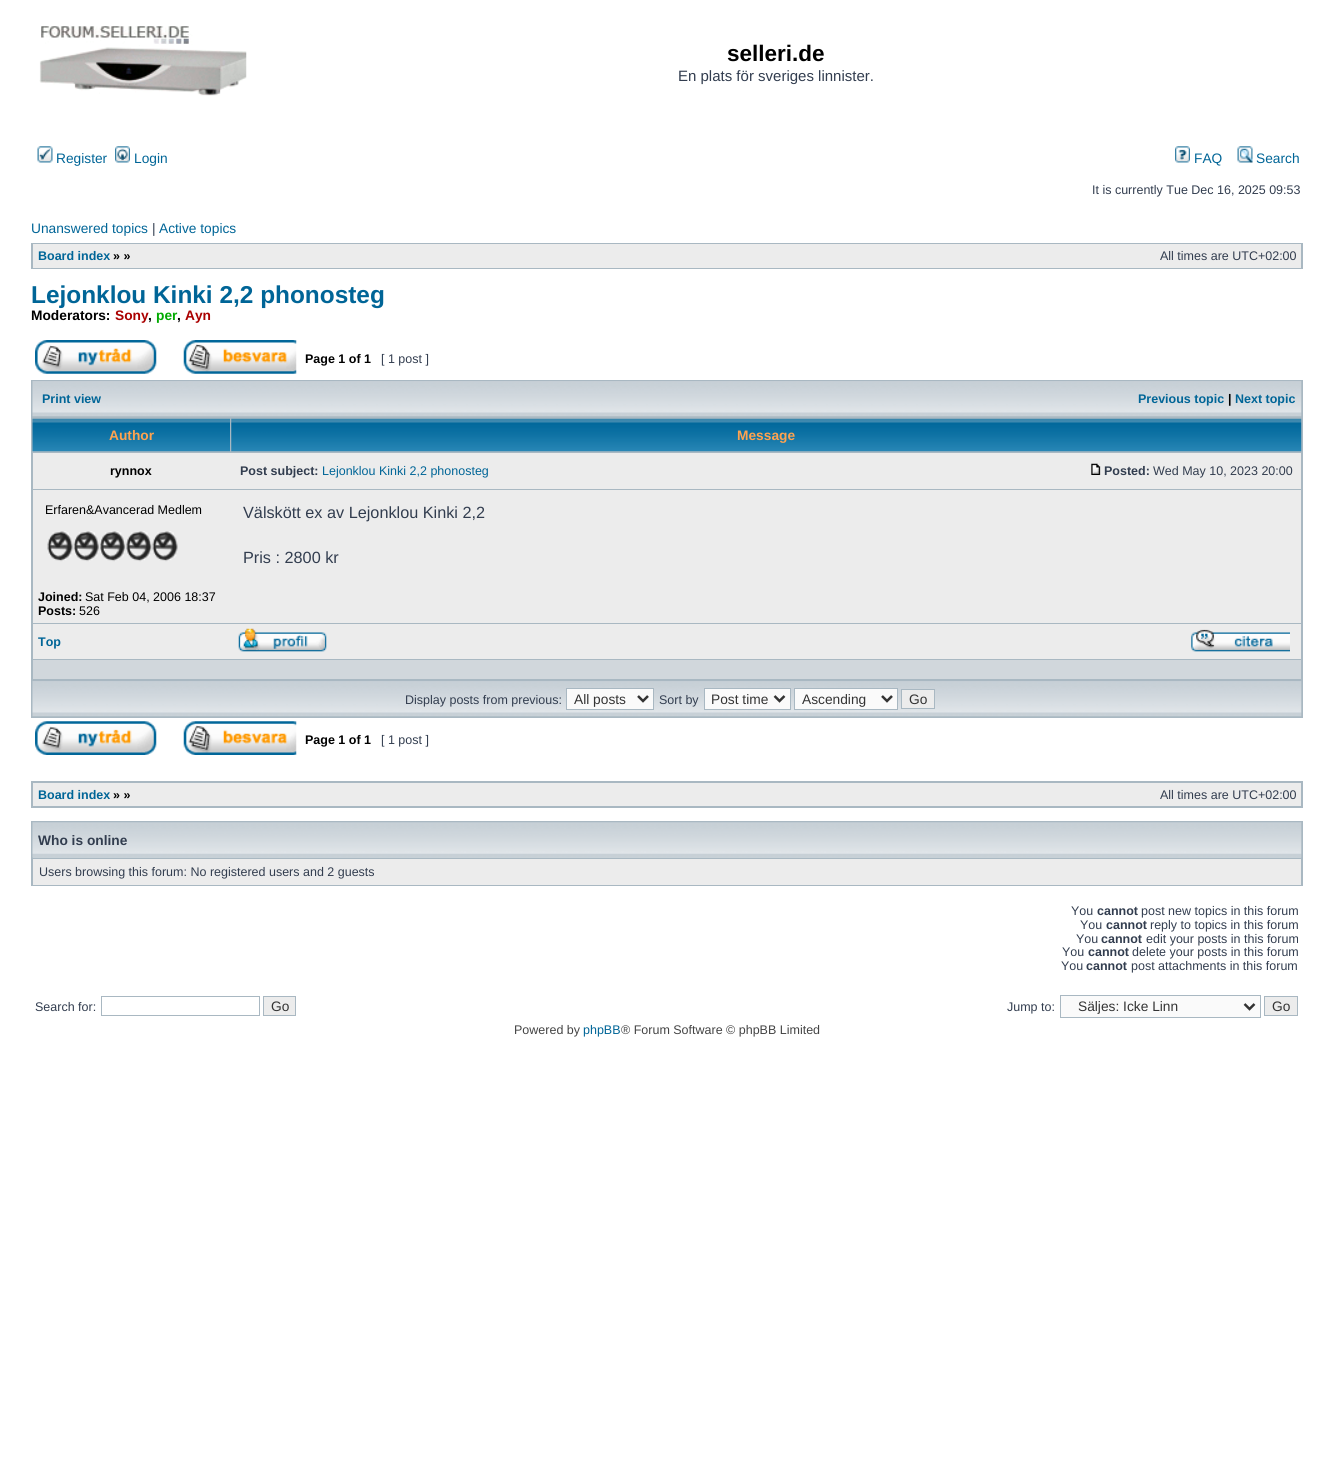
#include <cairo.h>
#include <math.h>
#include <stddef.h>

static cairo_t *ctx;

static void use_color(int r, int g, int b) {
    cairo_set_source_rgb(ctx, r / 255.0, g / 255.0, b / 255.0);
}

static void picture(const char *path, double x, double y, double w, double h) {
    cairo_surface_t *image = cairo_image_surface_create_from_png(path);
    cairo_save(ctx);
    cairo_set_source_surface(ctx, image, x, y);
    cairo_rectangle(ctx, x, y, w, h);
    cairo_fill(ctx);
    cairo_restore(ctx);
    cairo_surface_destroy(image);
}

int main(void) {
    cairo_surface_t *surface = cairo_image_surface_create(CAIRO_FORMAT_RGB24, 1333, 1475);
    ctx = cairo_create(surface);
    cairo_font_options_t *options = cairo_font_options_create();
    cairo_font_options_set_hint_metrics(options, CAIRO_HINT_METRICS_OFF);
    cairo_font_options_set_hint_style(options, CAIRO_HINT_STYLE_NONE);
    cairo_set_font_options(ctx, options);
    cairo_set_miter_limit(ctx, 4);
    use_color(255, 255, 255);
    cairo_paint(ctx);
    picture("img1.png", 39, 26, 208, 70);
    cairo_select_font_face(ctx, "Liberation Sans", CAIRO_FONT_SLANT_NORMAL, CAIRO_FONT_WEIGHT_BOLD);
    cairo_set_font_size(ctx, 22.5);
    use_color(0, 0, 0);
    cairo_move_to(ctx, 727, 61);
    cairo_show_text(ctx, "selleri.de");
    cairo_select_font_face(ctx, "Liberation Sans", CAIRO_FONT_SLANT_NORMAL, CAIRO_FONT_WEIGHT_NORMAL);
    cairo_set_font_size(ctx, 15);
    use_color(50, 61, 79);
    cairo_move_to(ctx, 678, 81);
    cairo_show_text(ctx, "En plats för sveriges linnister.");
    picture("img2.png", 37, 146, 16, 17);
    cairo_set_font_size(ctx, 13.75);
    use_color(0, 101, 151);
    cairo_move_to(ctx, 56, 163);
    cairo_show_text(ctx, "Register");
    picture("img3.png", 115, 146, 15, 17);
    cairo_move_to(ctx, 134, 163);
    cairo_show_text(ctx, "Login");
    picture("img4.png", 1175, 146, 15, 17);
    cairo_move_to(ctx, 1194, 163);
    cairo_show_text(ctx, "FAQ");
    picture("img5.png", 1237, 146, 16, 17);
    cairo_move_to(ctx, 1256, 163);
    cairo_show_text(ctx, "Search");
    cairo_set_font_size(ctx, 12.5);
    use_color(50, 61, 79);
    cairo_move_to(ctx, 1092, 194);
    cairo_show_text(ctx, "It is currently Tue Dec 16, 2025 09:53");
    cairo_set_font_size(ctx, 13.75);
    use_color(0, 101, 151);
    cairo_move_to(ctx, 31, 233);
    cairo_show_text(ctx, "Unanswered topics");
    use_color(50, 61, 79);
    cairo_move_to(ctx, 152, 233);
    cairo_show_text(ctx, "|");
    use_color(0, 101, 151);
    cairo_move_to(ctx, 159, 233);
    cairo_show_text(ctx, "Active topics");
    use_color(169, 184, 194);
    cairo_rectangle(ctx, 31, 243, 1272, 26);
    cairo_fill(ctx);
    use_color(236, 236, 236);
    cairo_rectangle(ctx, 33, 244, 1268, 24);
    cairo_fill(ctx);
    cairo_select_font_face(ctx, "Liberation Sans", CAIRO_FONT_SLANT_NORMAL, CAIRO_FONT_WEIGHT_BOLD);
    cairo_set_font_size(ctx, 12.5);
    use_color(0, 101, 151);
    cairo_move_to(ctx, 38, 260);
    cairo_show_text(ctx, "Board index");
    use_color(0, 0, 0);
    cairo_move_to(ctx, 113, 260);
    cairo_show_text(ctx, "» »");
    cairo_select_font_face(ctx, "Liberation Sans", CAIRO_FONT_SLANT_NORMAL, CAIRO_FONT_WEIGHT_NORMAL);
    use_color(50, 61, 79);
    cairo_move_to(ctx, 1160, 260);
    cairo_show_text(ctx, "All times are UTC+02:00");
    cairo_select_font_face(ctx, "Liberation Sans", CAIRO_FONT_SLANT_NORMAL, CAIRO_FONT_WEIGHT_BOLD);
    cairo_set_font_size(ctx, 24.4);
    use_color(0, 101, 151);
    cairo_move_to(ctx, 31, 303);
    cairo_show_text(ctx, "Lejonklou Kinki 2,2 phonosteg");
    cairo_set_font_size(ctx, 13.75);
    use_color(0, 0, 0);
    cairo_move_to(ctx, 31, 320);
    cairo_show_text(ctx, "Moderators:");
    use_color(170, 0, 0);
    cairo_move_to(ctx, 115, 320);
    cairo_show_text(ctx, "Sony");
    use_color(0, 0, 0);
    cairo_move_to(ctx, 148, 320);
    cairo_show_text(ctx, ",");
    use_color(0, 170, 0);
    cairo_move_to(ctx, 156, 320);
    cairo_show_text(ctx, "per");
    use_color(0, 0, 0);
    cairo_move_to(ctx, 177, 320);
    cairo_show_text(ctx, ",");
    use_color(170, 0, 0);
    cairo_move_to(ctx, 185, 320);
    cairo_show_text(ctx, "Ayn");
    picture("img6.png", 35, 340, 122, 34);
    picture("img7.png", 183, 340, 114, 34);
    cairo_set_font_size(ctx, 12.5);
    use_color(0, 0, 0);
    cairo_move_to(ctx, 305, 363);
    cairo_show_text(ctx, "Page 1 of 1");
    cairo_select_font_face(ctx, "Liberation Sans", CAIRO_FONT_SLANT_NORMAL, CAIRO_FONT_WEIGHT_NORMAL);
    use_color(50, 61, 79);
    cairo_move_to(ctx, 381, 363);
    cairo_show_text(ctx, "[ 1 post ]");
    use_color(169, 184, 194);
    cairo_rectangle(ctx, 31, 380, 1272, 338);
    cairo_fill(ctx);
    picture("img8.png", 32, 381, 1270, 36);
    cairo_select_font_face(ctx, "Liberation Sans", CAIRO_FONT_SLANT_NORMAL, CAIRO_FONT_WEIGHT_BOLD);
    use_color(0, 101, 151);
    cairo_move_to(ctx, 42, 403);
    cairo_show_text(ctx, "Print view");
    cairo_move_to(ctx, 1138, 403);
    cairo_show_text(ctx, "Previous topic");
    use_color(0, 0, 0);
    cairo_move_to(ctx, 1228, 403);
    cairo_show_text(ctx, "|");
    use_color(0, 101, 151);
    cairo_move_to(ctx, 1235, 403);
    cairo_show_text(ctx, "Next topic");
    picture("img9.png", 32, 418, 198, 34);
    cairo_set_font_size(ctx, 13.75);
    use_color(255, 163, 79);
    cairo_move_to(ctx, 109, 440);
    cairo_show_text(ctx, "Author");
    picture("img10.png", 231, 418, 1071, 34);
    cairo_move_to(ctx, 737, 440);
    cairo_show_text(ctx, "Message");
    use_color(236, 236, 236);
    cairo_rectangle(ctx, 33, 453, 1268, 36);
    cairo_fill(ctx);
    cairo_set_font_size(ctx, 12.5);
    use_color(0, 0, 0);
    cairo_move_to(ctx, 110, 475);
    cairo_show_text(ctx, "rynnox");
    use_color(50, 61, 79);
    cairo_move_to(ctx, 240, 475);
    cairo_show_text(ctx, "Post subject:");
    cairo_select_font_face(ctx, "Liberation Sans", CAIRO_FONT_SLANT_NORMAL, CAIRO_FONT_WEIGHT_NORMAL);
    use_color(0, 101, 151);
    cairo_move_to(ctx, 322, 475);
    cairo_show_text(ctx, "Lejonklou Kinki 2,2 phonosteg");
    picture("img11.png", 1091, 463, 10, 12);
    cairo_select_font_face(ctx, "Liberation Sans", CAIRO_FONT_SLANT_NORMAL, CAIRO_FONT_WEIGHT_BOLD);
    use_color(50, 61, 79);
    cairo_move_to(ctx, 1104, 475);
    cairo_show_text(ctx, "Posted:");
    cairo_select_font_face(ctx, "Liberation Sans", CAIRO_FONT_SLANT_NORMAL, CAIRO_FONT_WEIGHT_NORMAL);
    cairo_move_to(ctx, 1153, 475);
    cairo_show_text(ctx, "Wed May 10, 2023 20:00");
    use_color(236, 236, 236);
    cairo_rectangle(ctx, 33, 490, 1268, 133);
    cairo_fill(ctx);
    use_color(0, 0, 0);
    cairo_move_to(ctx, 45, 514);
    cairo_show_text(ctx, "Erfaren&Avancerad Medlem");
    picture("img12.png", 47, 531, 131, 31);
    cairo_select_font_face(ctx, "Liberation Sans", CAIRO_FONT_SLANT_NORMAL, CAIRO_FONT_WEIGHT_BOLD);
    cairo_move_to(ctx, 38, 601);
    cairo_show_text(ctx, "Joined:");
    cairo_select_font_face(ctx, "Liberation Sans", CAIRO_FONT_SLANT_NORMAL, CAIRO_FONT_WEIGHT_NORMAL);
    cairo_move_to(ctx, 85, 601);
    cairo_show_text(ctx, "Sat Feb 04, 2006 18:37");
    cairo_select_font_face(ctx, "Liberation Sans", CAIRO_FONT_SLANT_NORMAL, CAIRO_FONT_WEIGHT_BOLD);
    cairo_move_to(ctx, 38, 615);
    cairo_show_text(ctx, "Posts:");
    cairo_select_font_face(ctx, "Liberation Sans", CAIRO_FONT_SLANT_NORMAL, CAIRO_FONT_WEIGHT_NORMAL);
    cairo_move_to(ctx, 79, 615);
    cairo_show_text(ctx, "526");
    cairo_set_font_size(ctx, 16.25);
    use_color(50, 61, 79);
    cairo_move_to(ctx, 243, 518);
    cairo_show_text(ctx, "Välskött ex av Lejonklou Kinki 2,2");
    cairo_move_to(ctx, 243, 563);
    cairo_show_text(ctx, "Pris : 2800 kr");
    use_color(236, 236, 236);
    cairo_rectangle(ctx, 33, 624, 1268, 35);
    cairo_fill(ctx);
    cairo_select_font_face(ctx, "Liberation Sans", CAIRO_FONT_SLANT_NORMAL, CAIRO_FONT_WEIGHT_BOLD);
    cairo_set_font_size(ctx, 12.5);
    use_color(0, 101, 151);
    cairo_move_to(ctx, 38, 646);
    cairo_show_text(ctx, "Top");
    picture("img13.png", 238, 628, 89, 24);
    picture("img14.png", 1191, 629, 99, 23);
    use_color(209, 215, 220);
    cairo_rectangle(ctx, 33, 660, 1268, 19);
    cairo_fill(ctx);
    picture("img8.png", 32, 681, 1270, 36);
    cairo_select_font_face(ctx, "Liberation Sans", CAIRO_FONT_SLANT_NORMAL, CAIRO_FONT_WEIGHT_NORMAL);
    use_color(50, 61, 79);
    cairo_move_to(ctx, 405, 704);
    cairo_show_text(ctx, "Display posts from previous:");
    use_color(250, 250, 250);
    cairo_rectangle(ctx, 566.5, 688.5, 87, 21);
    cairo_fill_preserve(ctx);
    use_color(169, 184, 194);
    cairo_set_line_width(ctx, 1);
    cairo_stroke(ctx);
    cairo_new_path(ctx);
    cairo_move_to(ctx, 638, 696);
    cairo_line_to(ctx, 643, 701);
    cairo_line_to(ctx, 648, 696);
    use_color(51, 51, 51);
    cairo_set_line_width(ctx, 2.5);
    cairo_stroke(ctx);
    cairo_set_font_size(ctx, 13.75);
    cairo_move_to(ctx, 574, 704);
    cairo_show_text(ctx, "All posts");
    cairo_set_font_size(ctx, 12.5);
    use_color(50, 61, 79);
    cairo_move_to(ctx, 659, 704);
    cairo_show_text(ctx, "Sort by");
    use_color(250, 250, 250);
    cairo_rectangle(ctx, 704.5, 688.5, 86, 21);
    cairo_fill_preserve(ctx);
    use_color(169, 184, 194);
    cairo_set_line_width(ctx, 1);
    cairo_stroke(ctx);
    cairo_new_path(ctx);
    cairo_move_to(ctx, 774.5, 696);
    cairo_line_to(ctx, 779.5, 701);
    cairo_line_to(ctx, 784.5, 696);
    use_color(51, 51, 51);
    cairo_set_line_width(ctx, 2.5);
    cairo_stroke(ctx);
    cairo_set_font_size(ctx, 13.75);
    cairo_move_to(ctx, 711, 704);
    cairo_show_text(ctx, "Post time");
    use_color(250, 250, 250);
    cairo_rectangle(ctx, 794.5, 688.5, 103, 21);
    cairo_fill_preserve(ctx);
    use_color(169, 184, 194);
    cairo_set_line_width(ctx, 1);
    cairo_stroke(ctx);
    cairo_new_path(ctx);
    cairo_move_to(ctx, 882, 696);
    cairo_line_to(ctx, 887, 701);
    cairo_line_to(ctx, 892, 696);
    use_color(51, 51, 51);
    cairo_set_line_width(ctx, 2.5);
    cairo_stroke(ctx);
    cairo_move_to(ctx, 802, 704);
    cairo_show_text(ctx, "Ascending");
    use_color(236, 236, 236);
    cairo_rectangle(ctx, 901.5, 689.5, 33, 19);
    cairo_fill_preserve(ctx);
    use_color(169, 184, 194);
    cairo_set_line_width(ctx, 1);
    cairo_stroke(ctx);
    use_color(51, 51, 51);
    cairo_move_to(ctx, 909, 704);
    cairo_show_text(ctx, "Go");
    picture("img15.png", 35, 721, 122, 34);
    picture("img16.png", 183, 721, 114, 34);
    cairo_select_font_face(ctx, "Liberation Sans", CAIRO_FONT_SLANT_NORMAL, CAIRO_FONT_WEIGHT_BOLD);
    cairo_set_font_size(ctx, 12.5);
    use_color(0, 0, 0);
    cairo_move_to(ctx, 305, 744);
    cairo_show_text(ctx, "Page 1 of 1");
    cairo_select_font_face(ctx, "Liberation Sans", CAIRO_FONT_SLANT_NORMAL, CAIRO_FONT_WEIGHT_NORMAL);
    use_color(50, 61, 79);
    cairo_move_to(ctx, 381, 744);
    cairo_show_text(ctx, "[ 1 post ]");
    use_color(169, 184, 194);
    cairo_rectangle(ctx, 31, 781, 1272, 27);
    cairo_fill(ctx);
    use_color(236, 236, 236);
    cairo_rectangle(ctx, 33, 783, 1268, 23);
    cairo_fill(ctx);
    cairo_select_font_face(ctx, "Liberation Sans", CAIRO_FONT_SLANT_NORMAL, CAIRO_FONT_WEIGHT_BOLD);
    use_color(0, 101, 151);
    cairo_move_to(ctx, 38, 799);
    cairo_show_text(ctx, "Board index");
    use_color(0, 0, 0);
    cairo_move_to(ctx, 113, 799);
    cairo_show_text(ctx, "» »");
    cairo_select_font_face(ctx, "Liberation Sans", CAIRO_FONT_SLANT_NORMAL, CAIRO_FONT_WEIGHT_NORMAL);
    use_color(50, 61, 79);
    cairo_move_to(ctx, 1160, 799);
    cairo_show_text(ctx, "All times are UTC+02:00");
    use_color(169, 184, 194);
    cairo_rectangle(ctx, 31, 821, 1272, 65);
    cairo_fill(ctx);
    use_color(199, 208, 215);
    cairo_rectangle(ctx, 33, 857, 1268, 1);
    cairo_fill(ctx);
    picture("img17.png", 32, 822, 1270, 36);
    cairo_select_font_face(ctx, "Liberation Sans", CAIRO_FONT_SLANT_NORMAL, CAIRO_FONT_WEIGHT_BOLD);
    cairo_set_font_size(ctx, 13.75);
    use_color(50, 61, 79);
    cairo_move_to(ctx, 38, 845);
    cairo_show_text(ctx, "Who is online");
    use_color(236, 236, 236);
    cairo_rectangle(ctx, 33, 859, 1268, 26);
    cairo_fill(ctx);
    cairo_select_font_face(ctx, "Liberation Sans", CAIRO_FONT_SLANT_NORMAL, CAIRO_FONT_WEIGHT_NORMAL);
    cairo_set_font_size(ctx, 12.5);
    use_color(50, 61, 79);
    cairo_move_to(ctx, 39, 876);
    cairo_show_text(ctx, "Users browsing this forum: No registered users and 2 guests");
    cairo_move_to(ctx, 1071, 915);
    cairo_show_text(ctx, "You");
    cairo_select_font_face(ctx, "Liberation Sans", CAIRO_FONT_SLANT_NORMAL, CAIRO_FONT_WEIGHT_BOLD);
    cairo_move_to(ctx, 1097, 915);
    cairo_show_text(ctx, "cannot");
    cairo_select_font_face(ctx, "Liberation Sans", CAIRO_FONT_SLANT_NORMAL, CAIRO_FONT_WEIGHT_NORMAL);
    cairo_move_to(ctx, 1141, 915);
    cairo_show_text(ctx, "post new topics in this forum");
    cairo_move_to(ctx, 1080, 929);
    cairo_show_text(ctx, "You");
    cairo_select_font_face(ctx, "Liberation Sans", CAIRO_FONT_SLANT_NORMAL, CAIRO_FONT_WEIGHT_BOLD);
    cairo_move_to(ctx, 1106, 929);
    cairo_show_text(ctx, "cannot");
    cairo_select_font_face(ctx, "Liberation Sans", CAIRO_FONT_SLANT_NORMAL, CAIRO_FONT_WEIGHT_NORMAL);
    cairo_move_to(ctx, 1150, 929);
    cairo_show_text(ctx, "reply to topics in this forum");
    cairo_move_to(ctx, 1076, 943);
    cairo_show_text(ctx, "You");
    cairo_select_font_face(ctx, "Liberation Sans", CAIRO_FONT_SLANT_NORMAL, CAIRO_FONT_WEIGHT_BOLD);
    cairo_move_to(ctx, 1101, 943);
    cairo_show_text(ctx, "cannot");
    cairo_select_font_face(ctx, "Liberation Sans", CAIRO_FONT_SLANT_NORMAL, CAIRO_FONT_WEIGHT_NORMAL);
    cairo_move_to(ctx, 1146, 943);
    cairo_show_text(ctx, "edit your posts in this forum");
    cairo_move_to(ctx, 1062, 956);
    cairo_show_text(ctx, "You");
    cairo_select_font_face(ctx, "Liberation Sans", CAIRO_FONT_SLANT_NORMAL, CAIRO_FONT_WEIGHT_BOLD);
    cairo_move_to(ctx, 1088, 956);
    cairo_show_text(ctx, "cannot");
    cairo_select_font_face(ctx, "Liberation Sans", CAIRO_FONT_SLANT_NORMAL, CAIRO_FONT_WEIGHT_NORMAL);
    cairo_move_to(ctx, 1132, 956);
    cairo_show_text(ctx, "delete your posts in this forum");
    cairo_move_to(ctx, 1061, 970);
    cairo_show_text(ctx, "You");
    cairo_select_font_face(ctx, "Liberation Sans", CAIRO_FONT_SLANT_NORMAL, CAIRO_FONT_WEIGHT_BOLD);
    cairo_move_to(ctx, 1086, 970);
    cairo_show_text(ctx, "cannot");
    cairo_select_font_face(ctx, "Liberation Sans", CAIRO_FONT_SLANT_NORMAL, CAIRO_FONT_WEIGHT_NORMAL);
    cairo_move_to(ctx, 1131, 970);
    cairo_show_text(ctx, "post attachments in this forum");
    cairo_move_to(ctx, 35, 1011);
    cairo_show_text(ctx, "Search for:");
    cairo_rectangle(ctx, 101.5, 996.5, 158, 19);
    use_color(169, 184, 194);
    cairo_stroke(ctx);
    use_color(236, 236, 236);
    cairo_rectangle(ctx, 263.5, 996.5, 32, 19);
    cairo_fill_preserve(ctx);
    use_color(169, 184, 194);
    cairo_stroke(ctx);
    cairo_set_font_size(ctx, 13.75);
    use_color(51, 51, 51);
    cairo_move_to(ctx, 271, 1011);
    cairo_show_text(ctx, "Go");
    cairo_set_font_size(ctx, 12.5);
    use_color(50, 61, 79);
    cairo_move_to(ctx, 1007, 1011);
    cairo_show_text(ctx, "Jump to:");
    use_color(250, 250, 250);
    cairo_rectangle(ctx, 1060.5, 995.5, 200, 22);
    cairo_fill_preserve(ctx);
    use_color(169, 184, 194);
    cairo_stroke(ctx);
    cairo_new_path(ctx);
    cairo_move_to(ctx, 1244.5, 1004);
    cairo_line_to(ctx, 1249.5, 1009);
    cairo_line_to(ctx, 1254.5, 1004);
    use_color(51, 51, 51);
    cairo_set_line_width(ctx, 2.5);
    cairo_stroke(ctx);
    cairo_set_font_size(ctx, 13.75);
    cairo_move_to(ctx, 1078, 1011);
    cairo_show_text(ctx, "Säljes: Icke Linn");
    use_color(236, 236, 236);
    cairo_rectangle(ctx, 1264.5, 996.5, 33, 19);
    cairo_fill_preserve(ctx);
    use_color(169, 184, 194);
    cairo_set_line_width(ctx, 1);
    cairo_stroke(ctx);
    use_color(51, 51, 51);
    cairo_move_to(ctx, 1272, 1011);
    cairo_show_text(ctx, "Go");
    cairo_set_font_size(ctx, 12.5);
    use_color(68, 68, 68);
    cairo_move_to(ctx, 514, 1034);
    cairo_show_text(ctx, "Powered by");
    use_color(0, 101, 151);
    cairo_move_to(ctx, 583, 1034);
    cairo_show_text(ctx, "phpBB");
    use_color(68, 68, 68);
    cairo_move_to(ctx, 621, 1034);
    cairo_show_text(ctx, "® Forum Software © phpBB Limited");
    cairo_surface_write_to_png(surface, "result.png");
    cairo_font_options_destroy(options);
    cairo_destroy(ctx);
    cairo_surface_destroy(surface);
    return 0;
}
